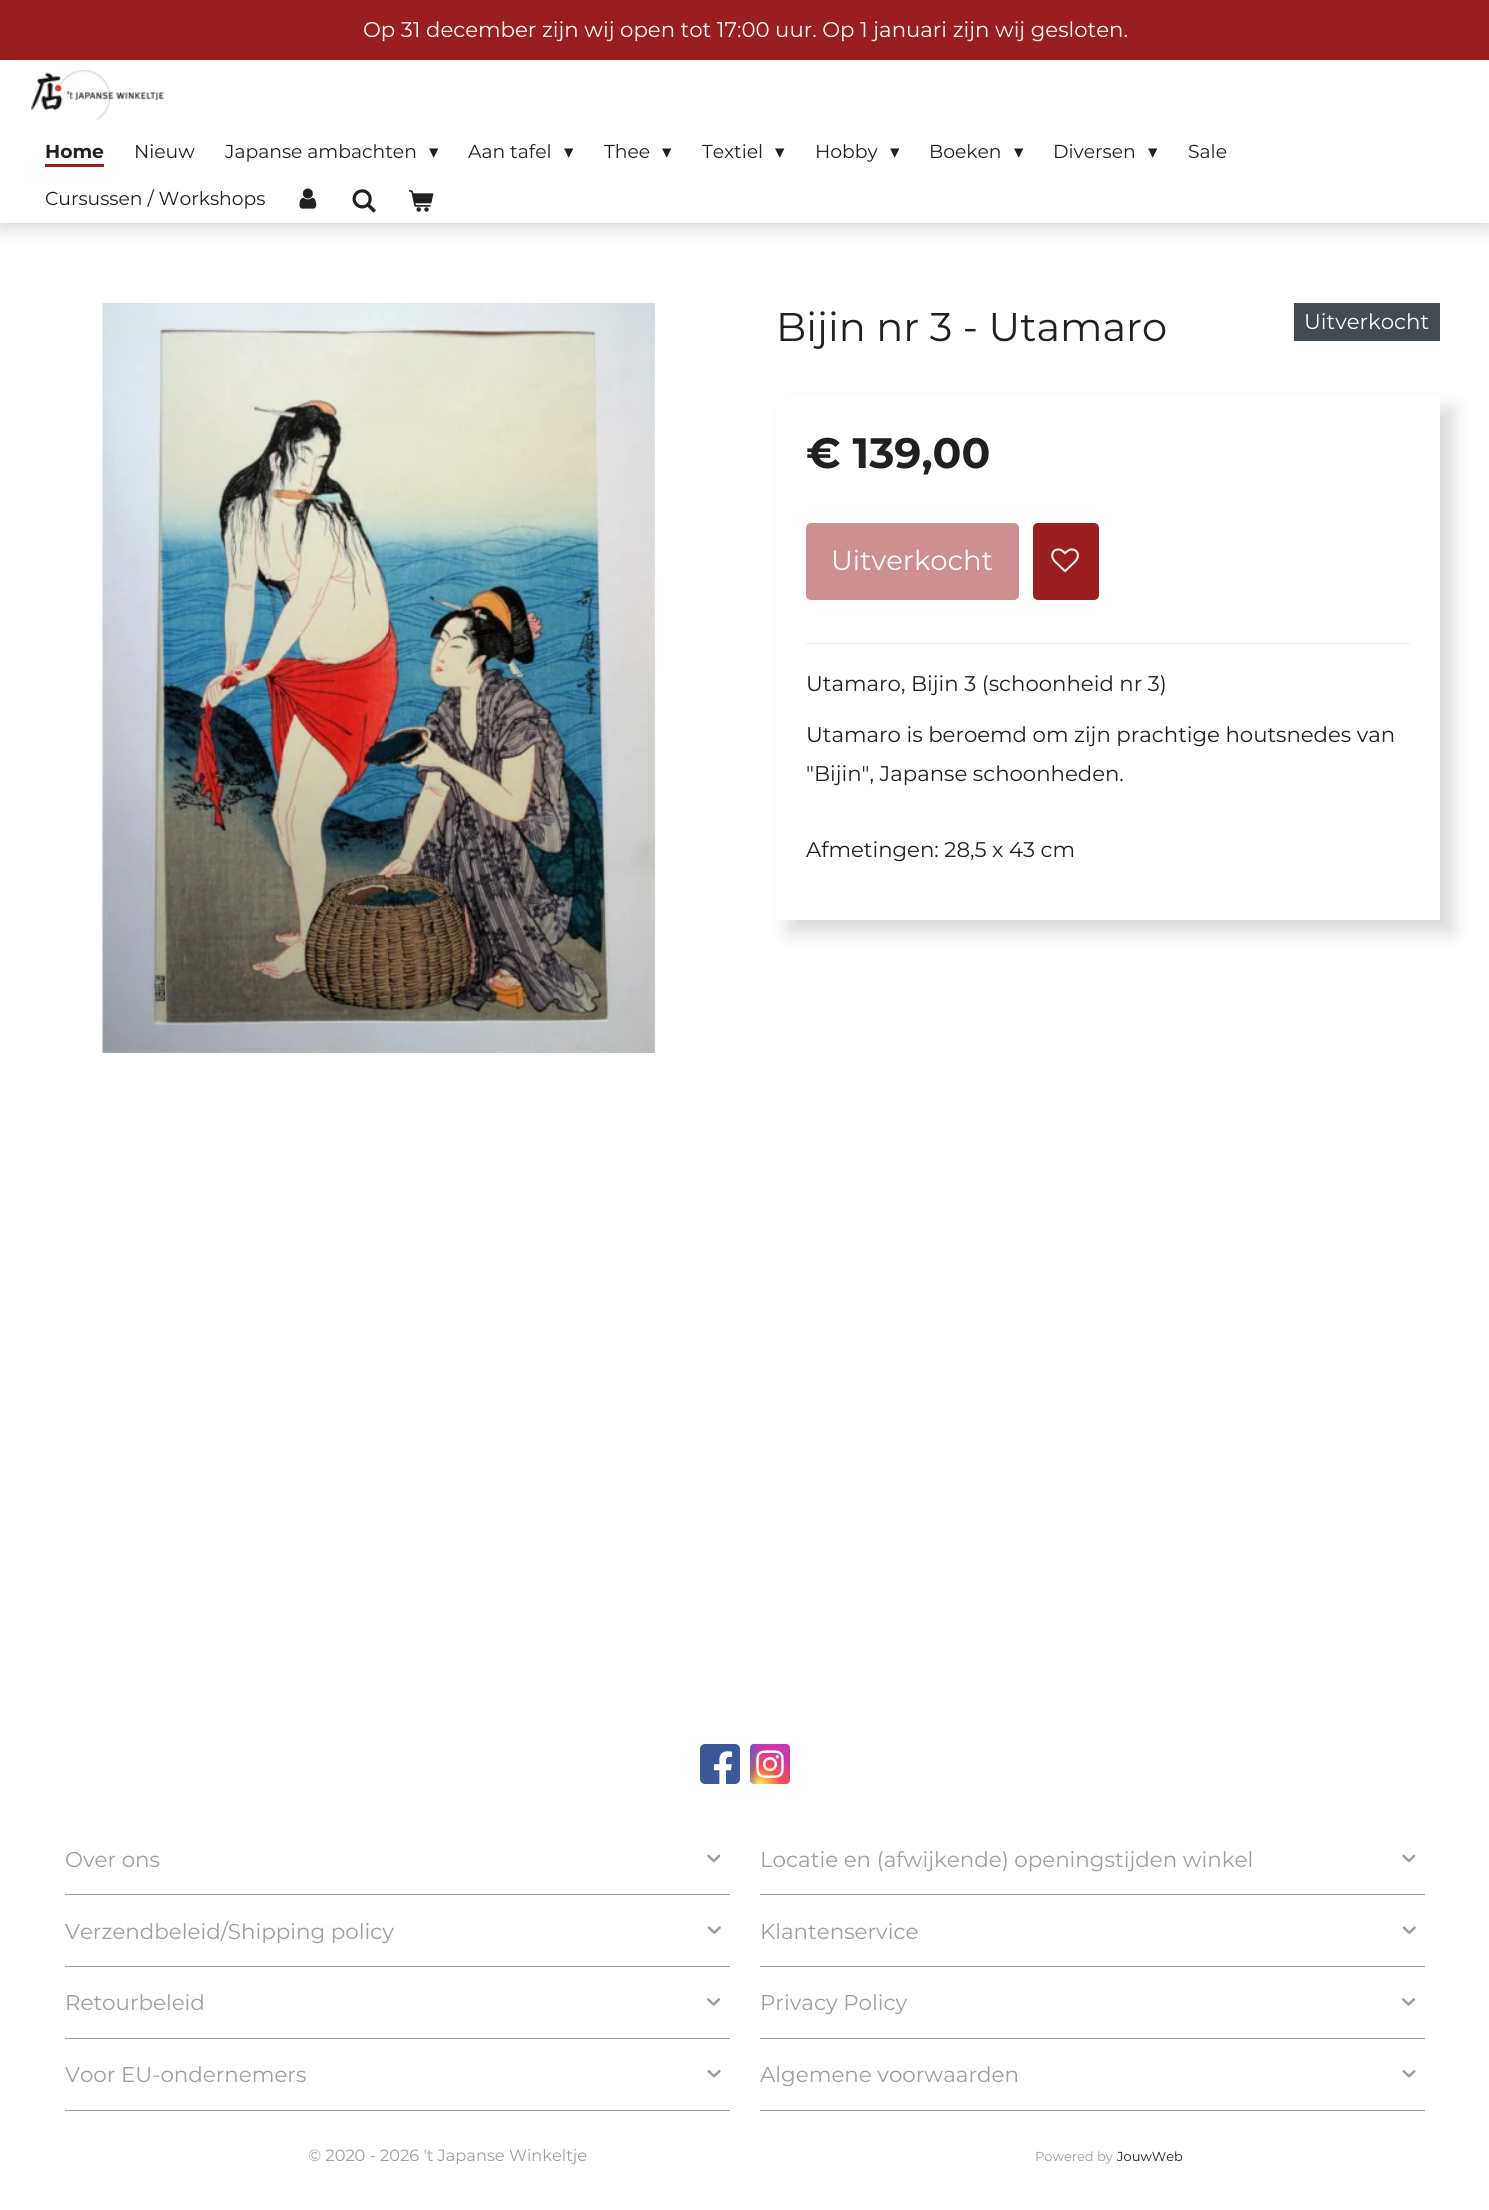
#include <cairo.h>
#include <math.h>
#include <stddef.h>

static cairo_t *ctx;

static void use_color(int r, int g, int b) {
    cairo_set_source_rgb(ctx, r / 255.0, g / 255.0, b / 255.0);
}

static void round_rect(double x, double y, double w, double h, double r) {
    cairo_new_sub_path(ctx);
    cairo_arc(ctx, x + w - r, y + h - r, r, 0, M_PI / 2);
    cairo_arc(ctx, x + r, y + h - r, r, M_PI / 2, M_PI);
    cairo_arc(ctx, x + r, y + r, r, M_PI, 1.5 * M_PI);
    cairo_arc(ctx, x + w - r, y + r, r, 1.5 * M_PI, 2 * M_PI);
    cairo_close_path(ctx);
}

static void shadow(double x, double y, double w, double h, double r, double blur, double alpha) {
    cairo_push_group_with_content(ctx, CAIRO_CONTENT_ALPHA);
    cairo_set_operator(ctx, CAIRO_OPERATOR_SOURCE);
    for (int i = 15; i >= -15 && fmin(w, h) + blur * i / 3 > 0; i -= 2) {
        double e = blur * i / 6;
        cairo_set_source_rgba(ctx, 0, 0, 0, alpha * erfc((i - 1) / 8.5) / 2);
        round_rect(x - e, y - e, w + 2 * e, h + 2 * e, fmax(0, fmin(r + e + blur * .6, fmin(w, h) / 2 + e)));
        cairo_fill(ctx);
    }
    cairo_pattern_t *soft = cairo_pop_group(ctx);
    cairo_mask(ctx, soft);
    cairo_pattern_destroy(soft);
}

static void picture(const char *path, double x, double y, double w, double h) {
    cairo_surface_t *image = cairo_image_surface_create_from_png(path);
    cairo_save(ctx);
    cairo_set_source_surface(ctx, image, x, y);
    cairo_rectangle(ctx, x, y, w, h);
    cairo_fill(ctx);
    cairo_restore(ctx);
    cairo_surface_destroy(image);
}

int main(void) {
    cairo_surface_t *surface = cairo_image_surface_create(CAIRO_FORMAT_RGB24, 1489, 2210);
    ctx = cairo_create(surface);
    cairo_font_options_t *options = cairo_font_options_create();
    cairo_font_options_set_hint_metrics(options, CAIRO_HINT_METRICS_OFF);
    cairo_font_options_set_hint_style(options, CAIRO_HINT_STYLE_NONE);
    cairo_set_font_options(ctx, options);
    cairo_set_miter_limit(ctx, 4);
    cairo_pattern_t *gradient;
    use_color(255, 255, 255);
    cairo_paint(ctx);
    use_color(154, 30, 30);
    cairo_rectangle(ctx, 0, 0, 1489, 60);
    cairo_fill(ctx);
    cairo_select_font_face(ctx, "Montserrat", CAIRO_FONT_SLANT_NORMAL, CAIRO_FONT_WEIGHT_NORMAL);
    cairo_set_font_size(ctx, 21.25);
    use_color(255, 255, 255);
    cairo_move_to(ctx, 363, 37);
    cairo_show_text(ctx, "Op 31 december zijn wij open tot 17:00 uur. Op 1 januari zijn wij gesloten.");
    use_color(0, 0, 0);
    shadow(0, 66, 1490, 163, 0, 9.5, 0.15);
    use_color(255, 255, 255);
    cairo_rectangle(ctx, 0, 60, 1489, 163);
    cairo_fill(ctx);
    picture("img1.png", 31, 70, 133, 50);
    cairo_select_font_face(ctx, "Montserrat", CAIRO_FONT_SLANT_NORMAL, CAIRO_FONT_WEIGHT_BOLD);
    cairo_set_font_size(ctx, 18.75);
    use_color(32, 32, 32);
    cairo_move_to(ctx, 45, 158);
    cairo_show_text(ctx, "Home");
    use_color(154, 30, 30);
    cairo_rectangle(ctx, 45, 164, 59, 3);
    cairo_fill(ctx);
    cairo_select_font_face(ctx, "Montserrat", CAIRO_FONT_SLANT_NORMAL, CAIRO_FONT_WEIGHT_NORMAL);
    use_color(32, 32, 32);
    cairo_move_to(ctx, 134, 158);
    cairo_show_text(ctx, "Nieuw");
    cairo_move_to(ctx, 225, 158);
    cairo_show_text(ctx, "Japanse ambachten");
    cairo_select_font_face(ctx, "DejaVu Sans", CAIRO_FONT_SLANT_NORMAL, CAIRO_FONT_WEIGHT_NORMAL);
    cairo_move_to(ctx, 429, 158);
    cairo_show_text(ctx, "▾");
    cairo_select_font_face(ctx, "Montserrat", CAIRO_FONT_SLANT_NORMAL, CAIRO_FONT_WEIGHT_NORMAL);
    cairo_move_to(ctx, 468, 158);
    cairo_show_text(ctx, "Aan tafel");
    cairo_select_font_face(ctx, "DejaVu Sans", CAIRO_FONT_SLANT_NORMAL, CAIRO_FONT_WEIGHT_NORMAL);
    cairo_move_to(ctx, 564, 158);
    cairo_show_text(ctx, "▾");
    cairo_select_font_face(ctx, "Montserrat", CAIRO_FONT_SLANT_NORMAL, CAIRO_FONT_WEIGHT_NORMAL);
    cairo_move_to(ctx, 604, 158);
    cairo_show_text(ctx, "Thee");
    cairo_select_font_face(ctx, "DejaVu Sans", CAIRO_FONT_SLANT_NORMAL, CAIRO_FONT_WEIGHT_NORMAL);
    cairo_move_to(ctx, 662, 158);
    cairo_show_text(ctx, "▾");
    cairo_select_font_face(ctx, "Montserrat", CAIRO_FONT_SLANT_NORMAL, CAIRO_FONT_WEIGHT_NORMAL);
    cairo_move_to(ctx, 702, 158);
    cairo_show_text(ctx, "Textiel");
    cairo_select_font_face(ctx, "DejaVu Sans", CAIRO_FONT_SLANT_NORMAL, CAIRO_FONT_WEIGHT_NORMAL);
    cairo_move_to(ctx, 775, 158);
    cairo_show_text(ctx, "▾");
    cairo_select_font_face(ctx, "Montserrat", CAIRO_FONT_SLANT_NORMAL, CAIRO_FONT_WEIGHT_NORMAL);
    cairo_move_to(ctx, 815, 158);
    cairo_show_text(ctx, "Hobby");
    cairo_select_font_face(ctx, "DejaVu Sans", CAIRO_FONT_SLANT_NORMAL, CAIRO_FONT_WEIGHT_NORMAL);
    cairo_move_to(ctx, 890, 158);
    cairo_show_text(ctx, "▾");
    cairo_select_font_face(ctx, "Montserrat", CAIRO_FONT_SLANT_NORMAL, CAIRO_FONT_WEIGHT_NORMAL);
    cairo_move_to(ctx, 929, 158);
    cairo_show_text(ctx, "Boeken");
    cairo_select_font_face(ctx, "DejaVu Sans", CAIRO_FONT_SLANT_NORMAL, CAIRO_FONT_WEIGHT_NORMAL);
    cairo_move_to(ctx, 1014, 158);
    cairo_show_text(ctx, "▾");
    cairo_select_font_face(ctx, "Montserrat", CAIRO_FONT_SLANT_NORMAL, CAIRO_FONT_WEIGHT_NORMAL);
    cairo_move_to(ctx, 1053, 158);
    cairo_show_text(ctx, "Diversen");
    cairo_select_font_face(ctx, "DejaVu Sans", CAIRO_FONT_SLANT_NORMAL, CAIRO_FONT_WEIGHT_NORMAL);
    cairo_move_to(ctx, 1148, 158);
    cairo_show_text(ctx, "▾");
    cairo_select_font_face(ctx, "Montserrat", CAIRO_FONT_SLANT_NORMAL, CAIRO_FONT_WEIGHT_NORMAL);
    cairo_move_to(ctx, 1188, 158);
    cairo_show_text(ctx, "Sale");
    cairo_move_to(ctx, 45, 205);
    cairo_show_text(ctx, "Cursussen / Workshops");
    picture("img2.png", 299, 188, 18, 21);
    picture("img3.png", 352, 189, 24, 24);
    picture("img4.png", 408, 190, 26, 22);
    picture("img5.png", 99, 303, 557, 750);
    cairo_set_font_size(ctx, 40);
    cairo_move_to(ctx, 776, 341);
    cairo_show_text(ctx, "Bijin nr 3 - Utamaro");
    use_color(66, 76, 81);
    cairo_rectangle(ctx, 1294, 303, 146, 38);
    cairo_fill(ctx);
    cairo_set_font_size(ctx, 21.25);
    use_color(255, 255, 255);
    cairo_move_to(ctx, 1304, 329);
    cairo_show_text(ctx, "Uitverkocht");
    cairo_save(ctx);
    cairo_set_fill_rule(ctx, CAIRO_FILL_RULE_EVEN_ODD);
    cairo_new_path(ctx);
    cairo_move_to(ctx, 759, 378);
    cairo_line_to(ctx, 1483, 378);
    cairo_line_to(ctx, 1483, 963);
    cairo_line_to(ctx, 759, 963);
    cairo_close_path(ctx);
    cairo_move_to(ctx, 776, 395);
    cairo_line_to(ctx, 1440, 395);
    cairo_line_to(ctx, 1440, 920);
    cairo_line_to(ctx, 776, 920);
    cairo_close_path(ctx);
    cairo_clip(ctx);
    use_color(0, 0, 0);
    shadow(789, 408, 664, 525, 0, 9.5, 0.15);
    cairo_restore(ctx);
    cairo_select_font_face(ctx, "Montserrat", CAIRO_FONT_SLANT_NORMAL, CAIRO_FONT_WEIGHT_BOLD);
    cairo_set_font_size(ctx, 42.5);
    use_color(32, 32, 32);
    cairo_move_to(ctx, 806, 468);
    cairo_show_text(ctx, "€ 139,00");
    use_color(205, 143, 143);
    round_rect(806, 523, 213, 77, 5);
    cairo_fill(ctx);
    cairo_select_font_face(ctx, "Montserrat", CAIRO_FONT_SLANT_NORMAL, CAIRO_FONT_WEIGHT_NORMAL);
    cairo_set_font_size(ctx, 27.5);
    use_color(255, 255, 255);
    cairo_move_to(ctx, 831, 570);
    cairo_show_text(ctx, "Uitverkocht");
    use_color(154, 30, 30);
    round_rect(1033, 523, 66, 77, 5);
    cairo_fill(ctx);
    picture("img6.png", 1051, 548, 28, 25);
    use_color(239, 239, 239);
    cairo_rectangle(ctx, 806, 643, 604, 1);
    cairo_fill(ctx);
    cairo_set_font_size(ctx, 21.25);
    use_color(32, 32, 32);
    cairo_move_to(ctx, 806, 691);
    cairo_show_text(ctx, "Utamaro, Bijin 3 (schoonheid nr 3)");
    cairo_move_to(ctx, 806, 742);
    cairo_show_text(ctx, "Utamaro is beroemd om zijn prachtige houtsnedes van");
    cairo_move_to(ctx, 806, 781);
    cairo_show_text(ctx, "\"Bijin\", Japanse schoonheden.");
    cairo_move_to(ctx, 806, 857);
    cairo_show_text(ctx, "Afmetingen: 28,5 x 43 cm");
    use_color(59, 89, 152);
    round_rect(700, 1744, 40, 40, 5);
    cairo_fill(ctx);
    picture("img7.png", 714, 1751, 19, 33);
    gradient = cairo_pattern_create_radial(0, 0, 0, 0, 0, 1);
    cairo_pattern_set_matrix(gradient, &(cairo_matrix_t){1.0 / 39, 0, 0, 1.0 / 36, -1.0 * 760 / 39, -1.0 * 1786 / 36});
    cairo_pattern_add_color_stop_rgba(gradient, 0, 1, 0.867, 0.333, 1);
    cairo_pattern_add_color_stop_rgba(gradient, 0.1, 1, 0.867, 0.333, 1);
    cairo_pattern_add_color_stop_rgba(gradient, 0.5, 1, 0.329, 0.243, 1);
    cairo_pattern_add_color_stop_rgba(gradient, 1, 0.784, 0.216, 0.671, 1);
    cairo_set_source(ctx, gradient);
    cairo_pattern_destroy(gradient);
    round_rect(750, 1744, 40, 40, 4);
    cairo_fill(ctx);
    gradient = cairo_pattern_create_radial(0, 0, 0, 0, 0, 1);
    cairo_pattern_set_matrix(gradient, &(cairo_matrix_t){1.0 / 17, 0, 0, 1.0 / 72, -1.0 * 743 / 17, -1.0 * 1747 / 72});
    cairo_pattern_add_color_stop_rgba(gradient, 0, 0.216, 0.443, 0.784, 1);
    cairo_pattern_add_color_stop_rgba(gradient, 0.13, 0.216, 0.443, 0.784, 1);
    cairo_pattern_add_color_stop_rgba(gradient, 1, 0.216, 0.443, 0.784, 0);
    cairo_set_source(ctx, gradient);
    cairo_pattern_destroy(gradient);
    round_rect(750, 1744, 40, 40, 4);
    cairo_fill(ctx);
    picture("img8.png", 756, 1750, 28, 28);
    use_color(159, 159, 159);
    cairo_rectangle(ctx, 65, 1894, 665, 1);
    cairo_fill(ctx);
    cairo_set_font_size(ctx, 21.4);
    cairo_move_to(ctx, 65, 1867);
    cairo_show_text(ctx, "Over ons");
    picture("img9.png", 707, 1854, 14, 9);
    cairo_rectangle(ctx, 65, 1966, 665, 1);
    cairo_fill(ctx);
    cairo_move_to(ctx, 65, 1939);
    cairo_show_text(ctx, "Verzendbeleid/Shipping policy");
    picture("img10.png", 707, 1926, 14, 8);
    cairo_rectangle(ctx, 65, 2038, 665, 1);
    cairo_fill(ctx);
    cairo_move_to(ctx, 65, 2010);
    cairo_show_text(ctx, "Retourbeleid");
    picture("img11.png", 707, 1998, 14, 8);
    cairo_rectangle(ctx, 65, 2110, 665, 1);
    cairo_fill(ctx);
    cairo_move_to(ctx, 65, 2082);
    cairo_show_text(ctx, "Voor EU-ondernemers");
    picture("img12.png", 707, 2069, 14, 9);
    cairo_rectangle(ctx, 760, 1894, 665, 1);
    cairo_fill(ctx);
    cairo_move_to(ctx, 760, 1867);
    cairo_show_text(ctx, "Locatie en (afwijkende) openingstijden winkel");
    picture("img9.png", 1402, 1854, 14, 9);
    cairo_rectangle(ctx, 760, 1966, 665, 1);
    cairo_fill(ctx);
    cairo_move_to(ctx, 760, 1939);
    cairo_show_text(ctx, "Klantenservice");
    picture("img10.png", 1402, 1926, 14, 8);
    cairo_rectangle(ctx, 760, 2038, 665, 1);
    cairo_fill(ctx);
    cairo_move_to(ctx, 760, 2010);
    cairo_show_text(ctx, "Privacy Policy");
    picture("img11.png", 1402, 1998, 14, 8);
    cairo_rectangle(ctx, 760, 2110, 665, 1);
    cairo_fill(ctx);
    cairo_move_to(ctx, 760, 2082);
    cairo_show_text(ctx, "Algemene voorwaarden");
    picture("img12.png", 1402, 2069, 14, 9);
    cairo_set_font_size(ctx, 16.25);
    cairo_move_to(ctx, 308, 2161);
    cairo_show_text(ctx, "© 2020 - 2026 't Japanse Winkeltje");
    cairo_set_font_size(ctx, 13);
    cairo_move_to(ctx, 1035, 2161);
    cairo_show_text(ctx, "Powered by");
    use_color(32, 32, 32);
    cairo_move_to(ctx, 1117, 2161);
    cairo_show_text(ctx, "JouwWeb");
    cairo_surface_write_to_png(surface, "result.png");
    cairo_font_options_destroy(options);
    cairo_destroy(ctx);
    cairo_surface_destroy(surface);
    return 0;
}
